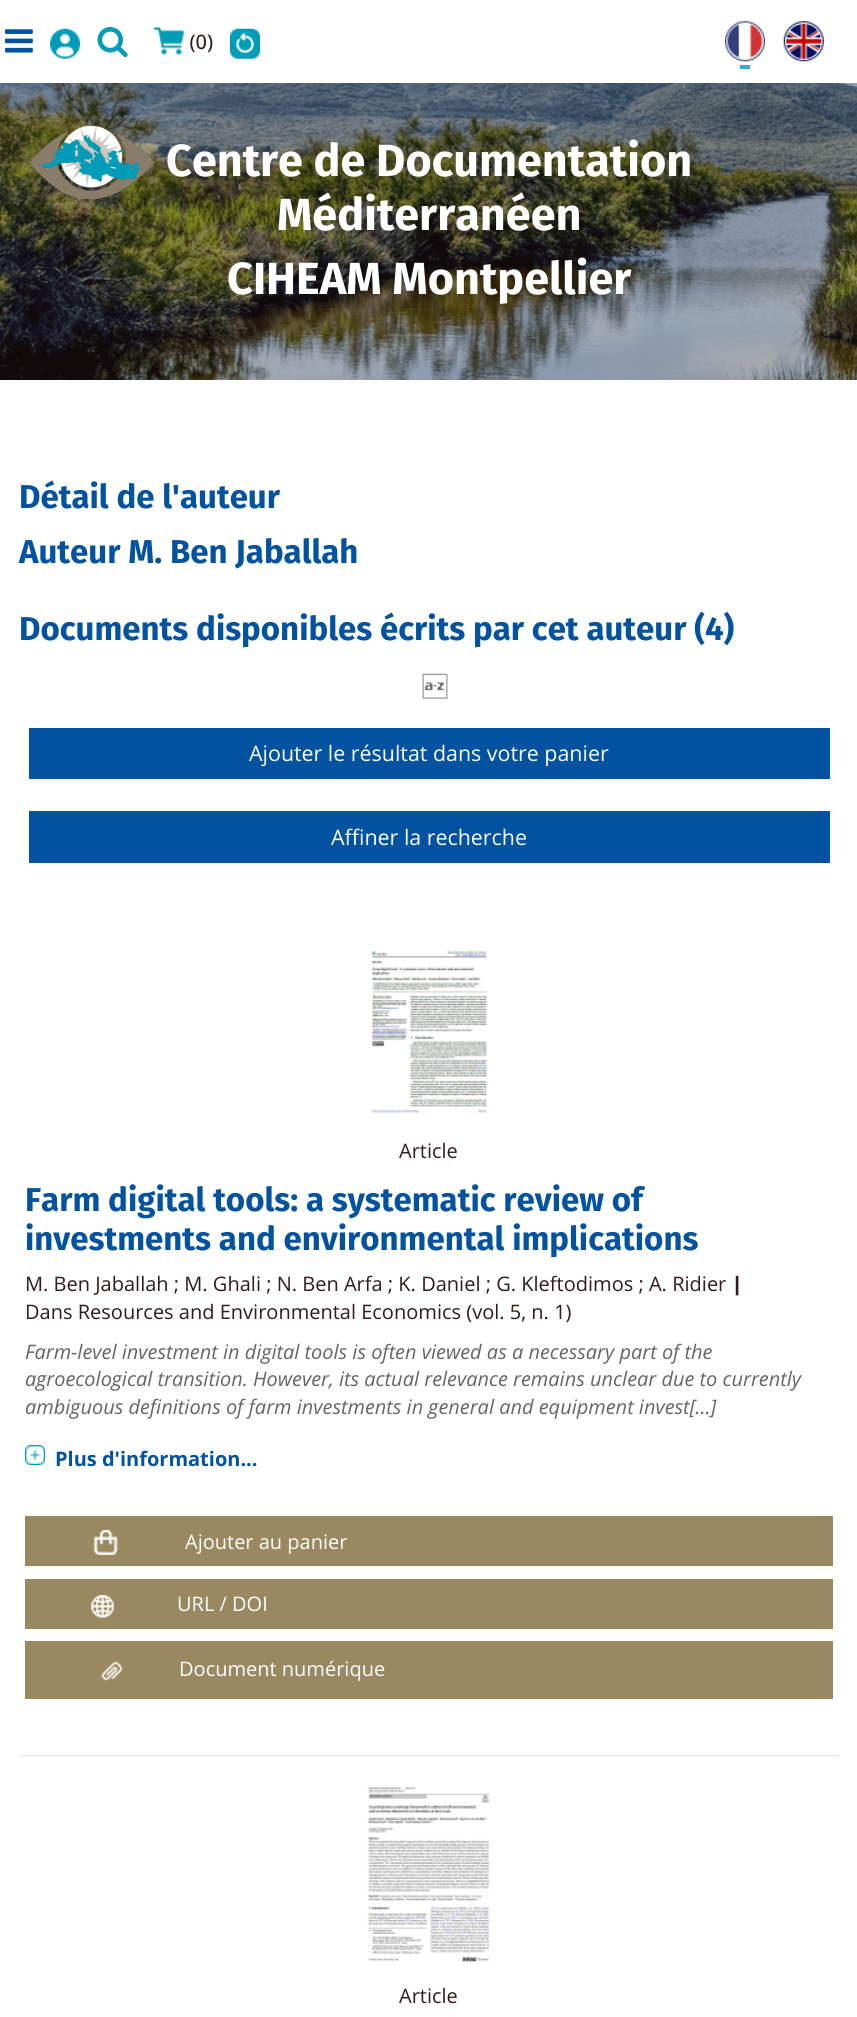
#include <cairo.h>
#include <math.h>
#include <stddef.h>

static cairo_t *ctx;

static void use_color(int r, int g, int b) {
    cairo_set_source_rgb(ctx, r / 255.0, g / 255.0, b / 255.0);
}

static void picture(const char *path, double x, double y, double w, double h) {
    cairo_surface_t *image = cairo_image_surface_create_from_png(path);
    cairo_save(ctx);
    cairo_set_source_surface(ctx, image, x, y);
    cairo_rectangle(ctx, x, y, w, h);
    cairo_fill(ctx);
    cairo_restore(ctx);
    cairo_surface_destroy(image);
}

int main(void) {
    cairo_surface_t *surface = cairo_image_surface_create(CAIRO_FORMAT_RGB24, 857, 2017);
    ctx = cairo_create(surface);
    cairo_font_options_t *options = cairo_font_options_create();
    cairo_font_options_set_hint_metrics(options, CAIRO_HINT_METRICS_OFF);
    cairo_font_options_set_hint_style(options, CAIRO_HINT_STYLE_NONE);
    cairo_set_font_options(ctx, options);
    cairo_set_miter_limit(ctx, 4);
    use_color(255, 255, 255);
    cairo_paint(ctx);
    picture("img1.png", 0, 83, 857, 297);
    picture("img2.png", 5, 29, 28, 24);
    picture("img3.png", 50, 28, 30, 31);
    picture("img4.png", 97, 27, 31, 31);
    picture("img5.png", 153, 27, 60, 28);
    picture("img6.png", 230, 28, 30, 31);
    picture("img7.png", 725, 21, 40, 41);
    use_color(51, 175, 197);
    cairo_rectangle(ctx, 740, 65, 10, 4);
    cairo_fill(ctx);
    picture("img8.png", 783, 21, 41, 41);
    picture("img9.png", 30, 125, 125, 75);
    cairo_select_font_face(ctx, "Fira Sans", CAIRO_FONT_SLANT_NORMAL, CAIRO_FONT_WEIGHT_BOLD);
    cairo_set_font_size(ctx, 45);
    use_color(255, 255, 255);
    cairo_move_to(ctx, 166, 176);
    cairo_show_text(ctx, "Centre de Documentation");
    cairo_move_to(ctx, 277, 230);
    cairo_show_text(ctx, "Méditerranéen");
    cairo_move_to(ctx, 227, 294);
    cairo_show_text(ctx, "CIHEAM Montpellier");
    cairo_set_font_size(ctx, 33);
    use_color(1, 82, 160);
    cairo_move_to(ctx, 19, 508);
    cairo_show_text(ctx, "Détail de l'auteur");
    cairo_move_to(ctx, 19, 563);
    cairo_show_text(ctx, "Auteur M. Ben Jaballah");
    cairo_move_to(ctx, 19, 640);
    cairo_show_text(ctx, "Documents disponibles écrits par cet auteur (4)");
    picture("img10.png", 422, 673, 26, 26);
    cairo_rectangle(ctx, 29, 728, 801, 51);
    cairo_fill(ctx);
    cairo_select_font_face(ctx, "Open Sans", CAIRO_FONT_SLANT_NORMAL, CAIRO_FONT_WEIGHT_NORMAL);
    cairo_set_font_size(ctx, 21.4);
    use_color(255, 255, 255);
    cairo_move_to(ctx, 249, 761);
    cairo_show_text(ctx, "Ajouter le résultat dans votre panier");
    use_color(1, 82, 160);
    cairo_rectangle(ctx, 29, 811, 801, 52);
    cairo_fill(ctx);
    use_color(255, 255, 255);
    cairo_move_to(ctx, 331, 845);
    cairo_show_text(ctx, "Affiner la recherche");
    use_color(231, 231, 231);
    cairo_rectangle(ctx, 19, 1755, 820, 1);
    cairo_fill(ctx);
    picture("img11.png", 371, 951, 117, 163);
    cairo_set_font_size(ctx, 20);
    use_color(50, 28, 28);
    cairo_move_to(ctx, 399, 1158);
    cairo_show_text(ctx, "Article");
    cairo_select_font_face(ctx, "Fira Sans", CAIRO_FONT_SLANT_NORMAL, CAIRO_FONT_WEIGHT_BOLD);
    cairo_set_font_size(ctx, 33);
    use_color(1, 82, 160);
    cairo_move_to(ctx, 25, 1211);
    cairo_show_text(ctx, "Farm digital tools: a systematic review of");
    cairo_move_to(ctx, 25, 1250);
    cairo_show_text(ctx, "investments and environmental implications");
    cairo_select_font_face(ctx, "Open Sans", CAIRO_FONT_SLANT_NORMAL, CAIRO_FONT_WEIGHT_NORMAL);
    cairo_set_font_size(ctx, 20);
    use_color(50, 28, 28);
    cairo_move_to(ctx, 25, 1291);
    cairo_show_text(ctx, "M. Ben Jaballah ; M. Ghali ; N. Ben Arfa ; K. Daniel ; G. Kleftodimos ; A. Ridier");
    cairo_select_font_face(ctx, "Open Sans ExtraBold", CAIRO_FONT_SLANT_NORMAL, CAIRO_FONT_WEIGHT_NORMAL);
    cairo_move_to(ctx, 732, 1291);
    cairo_show_text(ctx, "|");
    cairo_select_font_face(ctx, "Open Sans", CAIRO_FONT_SLANT_NORMAL, CAIRO_FONT_WEIGHT_NORMAL);
    cairo_move_to(ctx, 25, 1319);
    cairo_show_text(ctx, "Dans Resources and Environmental Economics (vol. 5, n. 1)");
    cairo_select_font_face(ctx, "Open Sans", CAIRO_FONT_SLANT_ITALIC, CAIRO_FONT_WEIGHT_NORMAL);
    use_color(102, 102, 102);
    cairo_move_to(ctx, 25, 1359);
    cairo_show_text(ctx, "Farm-level investment in digital tools is often viewed as a necessary part of the");
    cairo_move_to(ctx, 25, 1386);
    cairo_show_text(ctx, "agroecological transition. However, its actual relevance remains unclear due to currently");
    cairo_move_to(ctx, 25, 1414);
    cairo_show_text(ctx, "ambiguous definitions of farm investments in general and equipment invest[...]");
    picture("img12.png", 25, 1445, 20, 20);
    cairo_select_font_face(ctx, "Open Sans", CAIRO_FONT_SLANT_NORMAL, CAIRO_FONT_WEIGHT_BOLD);
    use_color(1, 82, 160);
    cairo_move_to(ctx, 55, 1466);
    cairo_show_text(ctx, "Plus d'information...");
    use_color(154, 136, 97);
    cairo_rectangle(ctx, 25, 1516, 808, 50);
    cairo_fill(ctx);
    picture("img13.png", 93, 1530, 25, 25);
    cairo_select_font_face(ctx, "Open Sans", CAIRO_FONT_SLANT_NORMAL, CAIRO_FONT_WEIGHT_NORMAL);
    use_color(255, 255, 255);
    cairo_move_to(ctx, 185, 1549);
    cairo_show_text(ctx, "Ajouter au panier");
    use_color(154, 136, 97);
    cairo_rectangle(ctx, 25, 1579, 808, 50);
    cairo_fill(ctx);
    picture("img14.png", 91, 1595, 23, 23);
    use_color(255, 255, 255);
    cairo_move_to(ctx, 177, 1611);
    cairo_show_text(ctx, "URL / DOI");
    use_color(154, 136, 97);
    cairo_rectangle(ctx, 25, 1641, 808, 58);
    cairo_fill(ctx);
    picture("img15.png", 101, 1661, 22, 20);
    use_color(255, 255, 255);
    cairo_move_to(ctx, 179, 1676);
    cairo_show_text(ctx, "Document numérique");
    picture("img16.png", 367, 1786, 123, 176);
    use_color(50, 28, 28);
    cairo_move_to(ctx, 399, 2003);
    cairo_show_text(ctx, "Article");
    cairo_surface_write_to_png(surface, "result.png");
    cairo_font_options_destroy(options);
    cairo_destroy(ctx);
    cairo_surface_destroy(surface);
    return 0;
}
